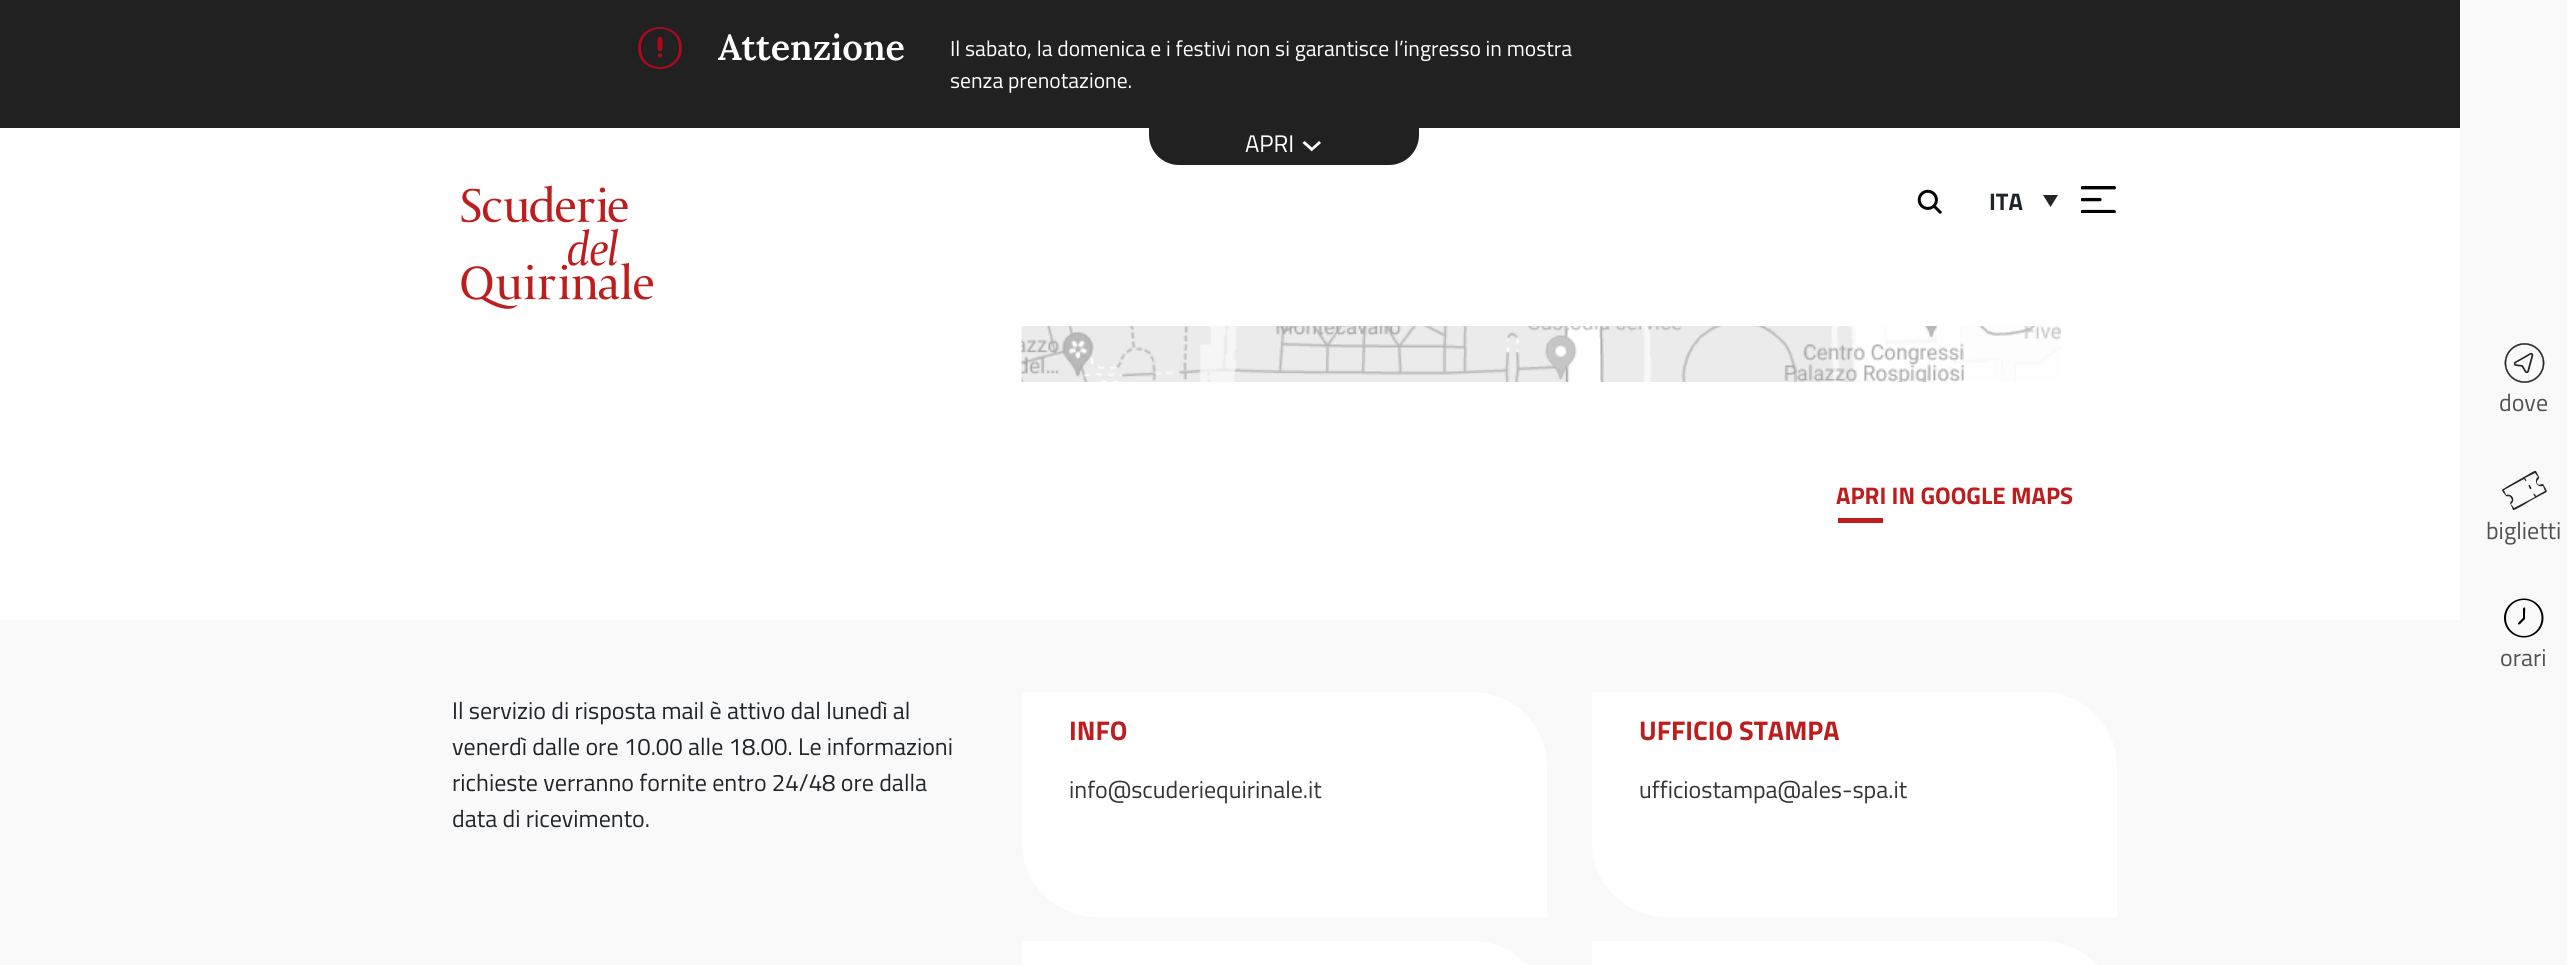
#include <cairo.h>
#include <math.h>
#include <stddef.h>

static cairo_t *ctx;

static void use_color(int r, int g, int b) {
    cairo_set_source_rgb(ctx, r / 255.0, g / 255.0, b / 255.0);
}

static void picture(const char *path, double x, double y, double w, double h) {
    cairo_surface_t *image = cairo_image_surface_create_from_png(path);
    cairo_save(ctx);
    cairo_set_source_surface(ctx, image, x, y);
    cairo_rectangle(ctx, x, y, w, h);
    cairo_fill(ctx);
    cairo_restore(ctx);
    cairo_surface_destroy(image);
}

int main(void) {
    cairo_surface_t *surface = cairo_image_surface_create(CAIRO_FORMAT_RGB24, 2567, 965);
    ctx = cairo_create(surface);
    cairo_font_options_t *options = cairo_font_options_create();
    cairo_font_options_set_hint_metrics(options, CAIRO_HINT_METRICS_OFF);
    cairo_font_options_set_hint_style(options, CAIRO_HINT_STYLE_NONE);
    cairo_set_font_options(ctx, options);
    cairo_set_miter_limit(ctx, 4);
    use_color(255, 255, 255);
    cairo_paint(ctx);
    use_color(33, 33, 33);
    cairo_rectangle(ctx, 0, 0, 2460, 128);
    cairo_fill(ctx);
    use_color(171, 10, 28);
    cairo_set_fill_rule(ctx, CAIRO_FILL_RULE_EVEN_ODD);
    cairo_new_path(ctx);
    cairo_move_to(ctx, 682, 48);
    cairo_curve_to(ctx, 682, 76, 638, 76, 638, 48);
    cairo_curve_to(ctx, 638, 20, 682, 20, 682, 48);
    cairo_close_path(ctx);
    cairo_move_to(ctx, 641, 48);
    cairo_curve_to(ctx, 641, 74, 680, 73, 679, 47);
    cairo_curve_to(ctx, 678, 22, 641, 23, 641, 48);
    cairo_close_path(ctx);
    cairo_fill(ctx);
    cairo_set_fill_rule(ctx, CAIRO_FILL_RULE_WINDING);
    cairo_new_path(ctx);
    cairo_move_to(ctx, 660, 53.5);
    cairo_curve_to(ctx, 657, 53.5, 657, 57.5, 660, 57.5);
    cairo_curve_to(ctx, 663, 57.5, 663, 53.5, 660, 53.5);
    cairo_close_path(ctx);
    cairo_move_to(ctx, 660, 51);
    cairo_curve_to(ctx, 656.5, 51, 657.5, 46, 657.5, 44);
    cairo_curve_to(ctx, 657.5, 42, 656.5, 37, 660, 37);
    cairo_curve_to(ctx, 663.5, 37, 662.5, 42, 662.5, 44);
    cairo_curve_to(ctx, 662.5, 46, 663.5, 51, 660, 51);
    cairo_close_path(ctx);
    cairo_fill(ctx);
    cairo_select_font_face(ctx, "Lora SemiBold", CAIRO_FONT_SLANT_NORMAL, CAIRO_FONT_WEIGHT_NORMAL);
    cairo_set_font_size(ctx, 36);
    use_color(255, 255, 255);
    cairo_move_to(ctx, 718, 60);
    cairo_show_text(ctx, "Attenzione");
    cairo_select_font_face(ctx, "Titillium Web", CAIRO_FONT_SLANT_NORMAL, CAIRO_FONT_WEIGHT_NORMAL);
    cairo_set_font_size(ctx, 21.6);
    cairo_move_to(ctx, 950, 56);
    cairo_show_text(ctx, "Il sabato, la domenica e i festivi non si garantisce l’ingresso in mostra");
    cairo_move_to(ctx, 950, 88);
    cairo_show_text(ctx, "senza prenotazione.");
    use_color(33, 33, 33);
    cairo_new_path(ctx);
    cairo_move_to(ctx, 1149, 120);
    cairo_line_to(ctx, 1419, 120);
    cairo_line_to(ctx, 1419, 135);
    cairo_curve_to(ctx, 1419, 151.5, 1405.5, 165, 1389, 165);
    cairo_line_to(ctx, 1179, 165);
    cairo_curve_to(ctx, 1162.5, 165, 1149, 151.5, 1149, 135);
    cairo_close_path(ctx);
    cairo_fill(ctx);
    cairo_set_font_size(ctx, 24);
    use_color(255, 255, 255);
    cairo_move_to(ctx, 1245, 152);
    cairo_show_text(ctx, "APRI");
    cairo_new_path(ctx);
    cairo_move_to(ctx, 1312, 151.5);
    cairo_line_to(ctx, 1302.5, 143);
    cairo_line_to(ctx, 1304.5, 141);
    cairo_line_to(ctx, 1312, 147.5);
    cairo_line_to(ctx, 1319, 141);
    cairo_line_to(ctx, 1321, 143);
    cairo_line_to(ctx, 1312.5, 150.5);
    cairo_close_path(ctx);
    cairo_fill(ctx);
    picture("img1.png", 461, 185, 193, 124);
    picture("img2.png", 1917, 189, 25, 25);
    cairo_select_font_face(ctx, "Titillium Web", CAIRO_FONT_SLANT_NORMAL, CAIRO_FONT_WEIGHT_BOLD);
    use_color(33, 37, 41);
    cairo_move_to(ctx, 1989, 210);
    cairo_show_text(ctx, "ITA");
    use_color(37, 37, 37);
    cairo_new_path(ctx);
    cairo_move_to(ctx, 2043, 195);
    cairo_line_to(ctx, 2058, 195);
    cairo_line_to(ctx, 2050.5, 207);
    cairo_close_path(ctx);
    cairo_fill(ctx);
    picture("img3.png", 2081, 186, 35, 27);
    picture("img4.png", 1021, 326, 1040, 56);
    use_color(189, 29, 29);
    cairo_move_to(ctx, 1836, 504);
    cairo_show_text(ctx, "APRI IN GOOGLE MAPS");
    cairo_rectangle(ctx, 1838, 518, 45, 5);
    cairo_fill(ctx);
    use_color(249, 249, 249);
    cairo_rectangle(ctx, 0, 620, 2460, 345);
    cairo_fill(ctx);
    cairo_select_font_face(ctx, "Titillium Web", CAIRO_FONT_SLANT_NORMAL, CAIRO_FONT_WEIGHT_NORMAL);
    use_color(33, 37, 41);
    cairo_move_to(ctx, 452, 719);
    cairo_show_text(ctx, "Il servizio di risposta mail è attivo dal lunedì al");
    cairo_move_to(ctx, 452, 755);
    cairo_show_text(ctx, "venerdì dalle ore 10.00 alle 18.00. Le informazioni");
    cairo_move_to(ctx, 452, 791);
    cairo_show_text(ctx, "richieste verranno fornite entro 24/48 ore dalla");
    cairo_move_to(ctx, 452, 827);
    cairo_show_text(ctx, "data di ricevimento.");
    use_color(255, 255, 255);
    cairo_new_path(ctx);
    cairo_move_to(ctx, 1022, 692);
    cairo_line_to(ctx, 1472, 692);
    cairo_curve_to(ctx, 1513.5, 692, 1547, 725.5, 1547, 767);
    cairo_line_to(ctx, 1547, 917);
    cairo_line_to(ctx, 1097, 917);
    cairo_curve_to(ctx, 1055.5, 917, 1022, 883.5, 1022, 842);
    cairo_close_path(ctx);
    cairo_fill(ctx);
    cairo_select_font_face(ctx, "Titillium Web", CAIRO_FONT_SLANT_NORMAL, CAIRO_FONT_WEIGHT_BOLD);
    cairo_set_font_size(ctx, 27);
    use_color(189, 29, 29);
    cairo_move_to(ctx, 1069, 740);
    cairo_show_text(ctx, "INFO");
    cairo_select_font_face(ctx, "Titillium Web", CAIRO_FONT_SLANT_NORMAL, CAIRO_FONT_WEIGHT_NORMAL);
    cairo_set_font_size(ctx, 24);
    use_color(53, 53, 53);
    cairo_move_to(ctx, 1069, 798);
    cairo_show_text(ctx, "info@scuderiequirinale.it");
    use_color(255, 255, 255);
    cairo_new_path(ctx);
    cairo_move_to(ctx, 1022, 941);
    cairo_line_to(ctx, 1472, 941);
    cairo_curve_to(ctx, 1513.5, 941, 1547, 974.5, 1547, 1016);
    cairo_line_to(ctx, 1547, 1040);
    cairo_line_to(ctx, 1097, 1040);
    cairo_curve_to(ctx, 1055.5, 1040, 1022, 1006.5, 1022, 965);
    cairo_close_path(ctx);
    cairo_fill(ctx);
    cairo_new_path(ctx);
    cairo_move_to(ctx, 1592, 692);
    cairo_line_to(ctx, 2042, 692);
    cairo_curve_to(ctx, 2083.5, 692, 2117, 725.5, 2117, 767);
    cairo_line_to(ctx, 2117, 917);
    cairo_line_to(ctx, 1667, 917);
    cairo_curve_to(ctx, 1625.5, 917, 1592, 883.5, 1592, 842);
    cairo_close_path(ctx);
    cairo_fill(ctx);
    cairo_select_font_face(ctx, "Titillium Web", CAIRO_FONT_SLANT_NORMAL, CAIRO_FONT_WEIGHT_BOLD);
    cairo_set_font_size(ctx, 27);
    use_color(189, 29, 29);
    cairo_move_to(ctx, 1639, 740);
    cairo_show_text(ctx, "UFFICIO STAMPA");
    cairo_select_font_face(ctx, "Titillium Web", CAIRO_FONT_SLANT_NORMAL, CAIRO_FONT_WEIGHT_NORMAL);
    cairo_set_font_size(ctx, 24);
    use_color(53, 53, 53);
    cairo_move_to(ctx, 1639, 798);
    cairo_show_text(ctx, "ufficiostampa@ales-spa.it");
    use_color(255, 255, 255);
    cairo_new_path(ctx);
    cairo_move_to(ctx, 1592, 941);
    cairo_line_to(ctx, 2042, 941);
    cairo_curve_to(ctx, 2083.5, 941, 2117, 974.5, 2117, 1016);
    cairo_line_to(ctx, 2117, 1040);
    cairo_line_to(ctx, 1667, 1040);
    cairo_curve_to(ctx, 1625.5, 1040, 1592, 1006.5, 1592, 965);
    cairo_close_path(ctx);
    cairo_fill(ctx);
    use_color(249, 249, 249);
    cairo_rectangle(ctx, 2460, 0, 107, 965);
    cairo_fill(ctx);
    picture("img5.png", 2504, 343, 41, 40);
    use_color(81, 81, 81);
    cairo_move_to(ctx, 2499, 411);
    cairo_show_text(ctx, "dove");
    use_color(37, 37, 37);
    cairo_set_fill_rule(ctx, CAIRO_FILL_RULE_EVEN_ODD);
    cairo_new_path(ctx);
    cairo_move_to(ctx, 2506, 496);
    cairo_curve_to(ctx, 2501, 489, 2500, 491, 2508, 486);
    cairo_line_to(ctx, 2529, 474);
    cairo_curve_to(ctx, 2529, 474, 2535, 470, 2536, 471);
    cairo_line_to(ctx, 2539, 477);
    cairo_curve_to(ctx, 2540, 479, 2536, 480, 2537, 483);
    cairo_curve_to(ctx, 2539, 487, 2542, 483, 2543, 484);
    cairo_line_to(ctx, 2546, 489);
    cairo_curve_to(ctx, 2548, 493, 2546, 492, 2541, 495);
    cairo_line_to(ctx, 2530, 501);
    cairo_curve_to(ctx, 2527, 503, 2514, 511, 2513, 510);
    cairo_line_to(ctx, 2511, 505);
    cairo_curve_to(ctx, 2508, 501, 2514, 502, 2511, 498);
    cairo_curve_to(ctx, 2510, 495, 2506, 497, 2506, 496);
    cairo_close_path(ctx);
    cairo_move_to(ctx, 2536, 481);
    cairo_curve_to(ctx, 2536, 480, 2536, 478, 2538, 477);
    cairo_line_to(ctx, 2535, 473);
    cairo_line_to(ctx, 2525, 478);
    cairo_curve_to(ctx, 2527, 481, 2527, 483, 2524, 479);
    cairo_line_to(ctx, 2504, 490);
    cairo_line_to(ctx, 2506, 495);
    cairo_curve_to(ctx, 2512, 493, 2516, 500, 2511, 504);
    cairo_line_to(ctx, 2514, 508);
    cairo_line_to(ctx, 2535, 497);
    cairo_curve_to(ctx, 2532, 493, 2534, 492, 2536, 496);
    cairo_line_to(ctx, 2545, 491);
    cairo_line_to(ctx, 2543, 486);
    cairo_curve_to(ctx, 2539, 487, 2536, 485, 2536, 481);
    cairo_close_path(ctx);
    cairo_fill(ctx);
    cairo_set_fill_rule(ctx, CAIRO_FILL_RULE_WINDING);
    cairo_new_path(ctx);
    cairo_move_to(ctx, 2530, 485.5);
    cairo_line_to(ctx, 2531, 487);
    cairo_curve_to(ctx, 2532, 489, 2530.5, 489.5, 2530, 489);
    cairo_curve_to(ctx, 2529, 487, 2527.5, 484.5, 2529.5, 485);
    cairo_close_path(ctx);
    cairo_fill(ctx);
    use_color(81, 81, 81);
    cairo_move_to(ctx, 2486, 539);
    cairo_show_text(ctx, "biglietti");
    use_color(0, 0, 0);
    cairo_set_fill_rule(ctx, CAIRO_FILL_RULE_EVEN_ODD);
    cairo_new_path(ctx);
    cairo_move_to(ctx, 2524, 637.5);
    cairo_curve_to(ctx, 2513, 637.5, 2504, 629, 2504, 618);
    cairo_curve_to(ctx, 2504, 607, 2513, 598.5, 2524, 598.5);
    cairo_curve_to(ctx, 2534.5, 598.5, 2543.5, 607, 2543.5, 618);
    cairo_curve_to(ctx, 2543.5, 629, 2534.5, 637.5, 2524, 637.5);
    cairo_close_path(ctx);
    cairo_move_to(ctx, 2524, 600);
    cairo_curve_to(ctx, 2514, 600, 2506, 608, 2506, 618);
    cairo_curve_to(ctx, 2506, 628, 2514, 636, 2524, 636);
    cairo_curve_to(ctx, 2533.5, 636, 2541.5, 628, 2541.5, 618);
    cairo_curve_to(ctx, 2541.5, 608, 2533.5, 600, 2524, 600);
    cairo_close_path(ctx);
    cairo_fill(ctx);
    cairo_set_fill_rule(ctx, CAIRO_FILL_RULE_WINDING);
    cairo_new_path(ctx);
    cairo_move_to(ctx, 2519, 624.5);
    cairo_curve_to(ctx, 2515.5, 624.5, 2522.5, 618.5, 2523, 618);
    cairo_line_to(ctx, 2523, 611.5);
    cairo_curve_to(ctx, 2523, 610.5, 2522.5, 608, 2524, 607.5);
    cairo_curve_to(ctx, 2526, 606.5, 2525, 612.5, 2525, 613.5);
    cairo_line_to(ctx, 2525, 619);
    cairo_line_to(ctx, 2521.5, 622.5);
    cairo_curve_to(ctx, 2521, 623, 2520, 624.5, 2519, 624.5);
    cairo_close_path(ctx);
    cairo_fill(ctx);
    use_color(81, 81, 81);
    cairo_move_to(ctx, 2500, 666);
    cairo_show_text(ctx, "orari");
    cairo_surface_write_to_png(surface, "result.png");
    cairo_font_options_destroy(options);
    cairo_destroy(ctx);
    cairo_surface_destroy(surface);
    return 0;
}
